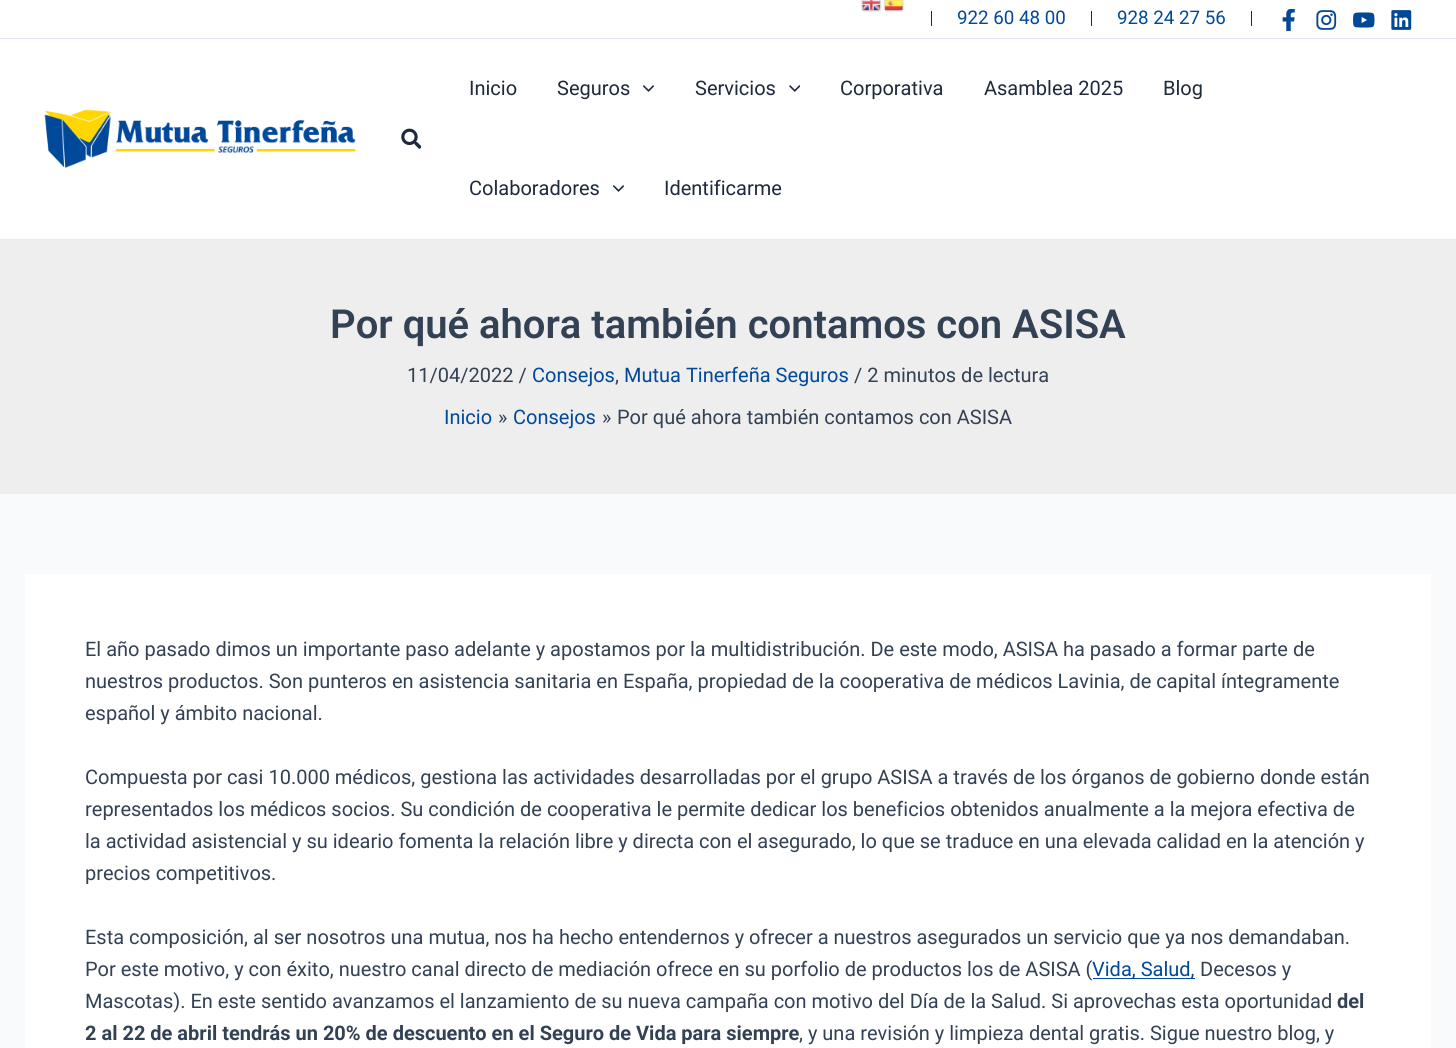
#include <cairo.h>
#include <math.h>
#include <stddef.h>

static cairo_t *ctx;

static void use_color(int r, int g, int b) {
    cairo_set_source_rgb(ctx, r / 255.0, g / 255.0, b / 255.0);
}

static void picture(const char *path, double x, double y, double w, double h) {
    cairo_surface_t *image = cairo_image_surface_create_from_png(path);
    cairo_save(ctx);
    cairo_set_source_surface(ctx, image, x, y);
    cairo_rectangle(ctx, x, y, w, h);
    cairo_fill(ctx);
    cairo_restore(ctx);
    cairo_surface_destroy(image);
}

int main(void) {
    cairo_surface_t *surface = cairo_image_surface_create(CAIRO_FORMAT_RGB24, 1456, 1048);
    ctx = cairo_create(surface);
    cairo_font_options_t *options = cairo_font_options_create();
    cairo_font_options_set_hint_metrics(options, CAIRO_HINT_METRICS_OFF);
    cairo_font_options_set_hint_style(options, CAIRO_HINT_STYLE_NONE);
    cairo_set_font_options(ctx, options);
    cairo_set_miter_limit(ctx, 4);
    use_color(249, 250, 251);
    cairo_paint(ctx);
    use_color(255, 255, 255);
    cairo_rectangle(ctx, 0, 0, 1456, 38);
    cairo_fill(ctx);
    use_color(226, 232, 240);
    cairo_rectangle(ctx, 0, 38, 1456, 1);
    cairo_fill(ctx);
    picture("img1.png", 861, 0, 21, 12);
    picture("img2.png", 883, 0, 21, 12);
    use_color(30, 41, 59);
    cairo_rectangle(ctx, 931, 11, 1, 15);
    cairo_fill(ctx);
    cairo_select_font_face(ctx, "Roboto", CAIRO_FONT_SLANT_NORMAL, CAIRO_FONT_WEIGHT_NORMAL);
    cairo_set_font_size(ctx, 18.75);
    use_color(0, 72, 153);
    cairo_move_to(ctx, 957, 24);
    cairo_show_text(ctx, "922 60 48 00");
    use_color(30, 41, 59);
    cairo_rectangle(ctx, 1091, 11, 1, 15);
    cairo_fill(ctx);
    use_color(0, 72, 153);
    cairo_move_to(ctx, 1117, 24);
    cairo_show_text(ctx, "928 24 27 56");
    use_color(30, 41, 59);
    cairo_rectangle(ctx, 1251, 11, 1, 15);
    cairo_fill(ctx);
    picture("img3.png", 1282, 9, 13, 22);
    picture("img4.png", 1316, 10, 21, 20);
    picture("img5.png", 1353, 12, 22, 16);
    picture("img6.png", 1391, 10, 21, 20);
    use_color(255, 255, 255);
    cairo_rectangle(ctx, 0, 39, 1456, 200);
    cairo_fill(ctx);
    use_color(234, 234, 234);
    cairo_rectangle(ctx, 0, 239, 1456, 1);
    cairo_fill(ctx);
    picture("img7.png", 44, 109, 312, 59);
    picture("img8.png", 401, 128, 20, 21);
    cairo_set_font_size(ctx, 20);
    use_color(30, 41, 59);
    cairo_move_to(ctx, 469, 95);
    cairo_show_text(ctx, "Inicio");
    cairo_move_to(ctx, 557, 95);
    cairo_show_text(ctx, "Seguros");
    picture("img9.png", 643, 85, 12, 7);
    cairo_move_to(ctx, 695, 95);
    cairo_show_text(ctx, "Servicios");
    picture("img10.png", 789, 85, 11, 7);
    cairo_move_to(ctx, 840, 95);
    cairo_show_text(ctx, "Corporativa");
    cairo_move_to(ctx, 984, 95);
    cairo_show_text(ctx, "Asamblea 2025");
    cairo_move_to(ctx, 1163, 95);
    cairo_show_text(ctx, "Blog");
    cairo_move_to(ctx, 469, 195);
    cairo_show_text(ctx, "Colaboradores");
    picture("img11.png", 613, 185, 11, 7);
    cairo_move_to(ctx, 664, 195);
    cairo_show_text(ctx, "Identificarme");
    use_color(238, 238, 238);
    cairo_rectangle(ctx, 0, 240, 1456, 254);
    cairo_fill(ctx);
    cairo_select_font_face(ctx, "Roboto SemiBold", CAIRO_FONT_SLANT_NORMAL, CAIRO_FONT_WEIGHT_NORMAL);
    cairo_set_font_size(ctx, 40);
    use_color(51, 65, 85);
    cairo_move_to(ctx, 330, 338);
    cairo_show_text(ctx, "Por qué ahora también contamos con ASISA");
    cairo_select_font_face(ctx, "Roboto", CAIRO_FONT_SLANT_NORMAL, CAIRO_FONT_WEIGHT_NORMAL);
    cairo_set_font_size(ctx, 20);
    cairo_move_to(ctx, 407, 382);
    cairo_show_text(ctx, "11/04/2022 /");
    use_color(0, 72, 153);
    cairo_move_to(ctx, 532, 382);
    cairo_show_text(ctx, "Consejos");
    use_color(51, 65, 85);
    cairo_move_to(ctx, 615, 382);
    cairo_show_text(ctx, ",");
    use_color(0, 72, 153);
    cairo_move_to(ctx, 624, 382);
    cairo_show_text(ctx, "Mutua Tinerfeña Seguros");
    use_color(51, 65, 85);
    cairo_move_to(ctx, 854, 382);
    cairo_show_text(ctx, "/ 2 minutos de lectura");
    use_color(0, 72, 153);
    cairo_move_to(ctx, 444, 424);
    cairo_show_text(ctx, "Inicio");
    use_color(51, 65, 85);
    cairo_move_to(ctx, 498, 424);
    cairo_show_text(ctx, "»");
    use_color(0, 72, 153);
    cairo_move_to(ctx, 513, 424);
    cairo_show_text(ctx, "Consejos");
    use_color(51, 65, 85);
    cairo_move_to(ctx, 602, 424);
    cairo_show_text(ctx, "»");
    cairo_move_to(ctx, 617, 424);
    cairo_show_text(ctx, "Por qué ahora también contamos con ASISA");
    use_color(255, 255, 255);
    cairo_rectangle(ctx, 25, 574, 1406, 474);
    cairo_fill(ctx);
    use_color(51, 65, 85);
    cairo_move_to(ctx, 85, 656);
    cairo_show_text(ctx, "El año pasado dimos un importante paso adelante y apostamos por la multidistribución. De este modo, ASISA ha pasado a formar parte de");
    cairo_move_to(ctx, 85, 688);
    cairo_show_text(ctx, "nuestros productos. Son punteros en asistencia sanitaria en España, propiedad de la cooperativa de médicos Lavinia, de capital íntegramente");
    cairo_move_to(ctx, 85, 720);
    cairo_show_text(ctx, "español y ámbito nacional.");
    cairo_move_to(ctx, 85, 784);
    cairo_show_text(ctx, "Compuesta por casi 10.000 médicos, gestiona las actividades desarrolladas por el grupo ASISA a través de los órganos de gobierno donde están");
    cairo_move_to(ctx, 85, 816);
    cairo_show_text(ctx, "representados los médicos socios. Su condición de cooperativa le permite dedicar los beneficios obtenidos anualmente a la mejora efectiva de");
    cairo_move_to(ctx, 85, 848);
    cairo_show_text(ctx, "la actividad asistencial y su ideario fomenta la relación libre y directa con el asegurado, lo que se traduce en una elevada calidad en la atención y");
    cairo_move_to(ctx, 85, 880);
    cairo_show_text(ctx, "precios competitivos.");
    cairo_move_to(ctx, 85, 944);
    cairo_show_text(ctx, "Esta composición, al ser nosotros una mutua, nos ha hecho entendernos y ofrecer a nuestros asegurados un servicio que ya nos demandaban.");
    cairo_move_to(ctx, 85, 976);
    cairo_show_text(ctx, "Por este motivo, y con éxito, nuestro canal directo de mediación ofrece en su porfolio de productos los de ASISA (");
    use_color(0, 72, 153);
    cairo_rectangle(ctx, 1093, 978, 102, 1);
    cairo_fill(ctx);
    cairo_move_to(ctx, 1092, 976);
    cairo_show_text(ctx, "Vida, Salud,");
    use_color(51, 65, 85);
    cairo_move_to(ctx, 1200, 976);
    cairo_show_text(ctx, "Decesos y");
    cairo_move_to(ctx, 85, 1008);
    cairo_show_text(ctx, "Mascotas). En este sentido avanzamos el lanzamiento de su nueva campaña con motivo del Día de la Salud. Si aprovechas esta oportunidad");
    cairo_select_font_face(ctx, "Roboto", CAIRO_FONT_SLANT_NORMAL, CAIRO_FONT_WEIGHT_BOLD);
    cairo_move_to(ctx, 1337, 1008);
    cairo_show_text(ctx, "del");
    cairo_move_to(ctx, 85, 1040);
    cairo_show_text(ctx, "2 al 22 de abril tendrás un 20% de descuento en el Seguro de Vida para siempre");
    cairo_select_font_face(ctx, "Roboto", CAIRO_FONT_SLANT_NORMAL, CAIRO_FONT_WEIGHT_NORMAL);
    cairo_move_to(ctx, 799, 1040);
    cairo_show_text(ctx, ", y una revisión y limpieza dental gratis. Sigue nuestro blog, y");
    cairo_surface_write_to_png(surface, "result.png");
    cairo_font_options_destroy(options);
    cairo_destroy(ctx);
    cairo_surface_destroy(surface);
    return 0;
}
